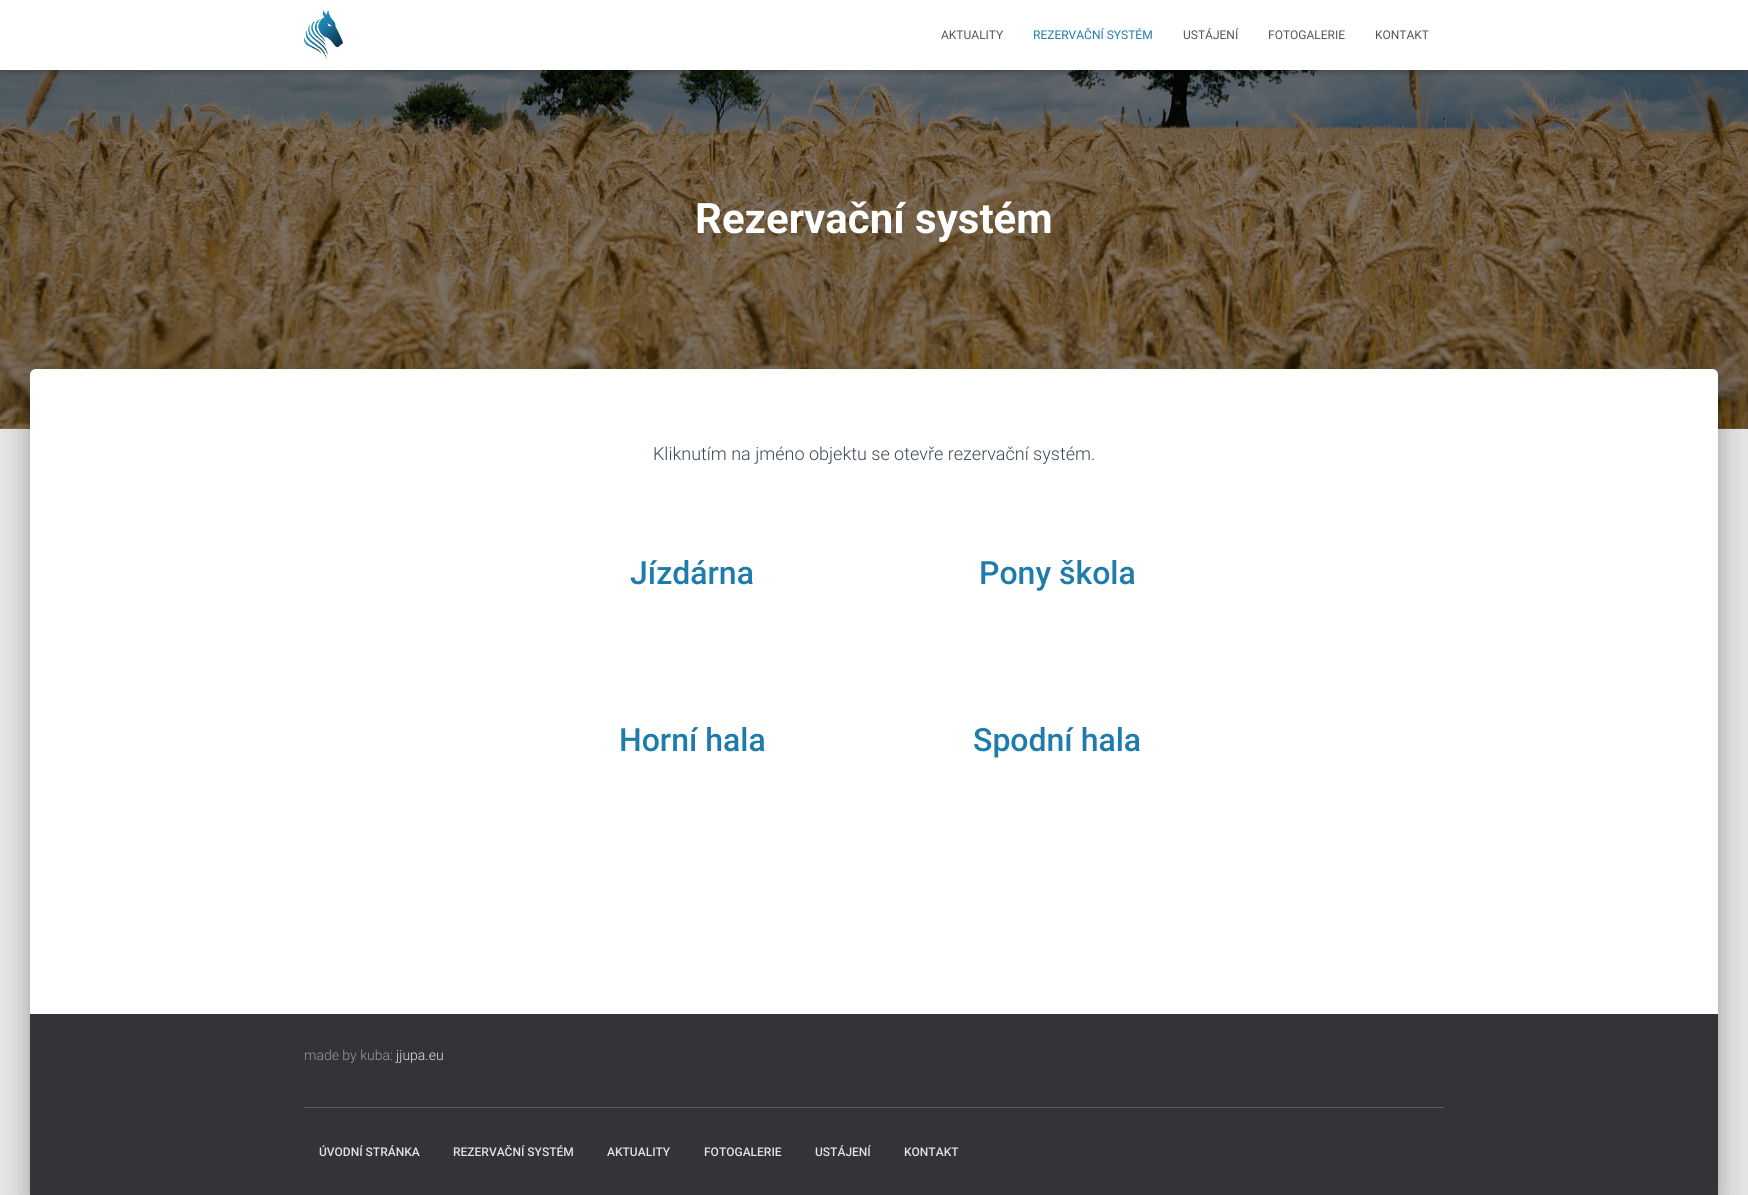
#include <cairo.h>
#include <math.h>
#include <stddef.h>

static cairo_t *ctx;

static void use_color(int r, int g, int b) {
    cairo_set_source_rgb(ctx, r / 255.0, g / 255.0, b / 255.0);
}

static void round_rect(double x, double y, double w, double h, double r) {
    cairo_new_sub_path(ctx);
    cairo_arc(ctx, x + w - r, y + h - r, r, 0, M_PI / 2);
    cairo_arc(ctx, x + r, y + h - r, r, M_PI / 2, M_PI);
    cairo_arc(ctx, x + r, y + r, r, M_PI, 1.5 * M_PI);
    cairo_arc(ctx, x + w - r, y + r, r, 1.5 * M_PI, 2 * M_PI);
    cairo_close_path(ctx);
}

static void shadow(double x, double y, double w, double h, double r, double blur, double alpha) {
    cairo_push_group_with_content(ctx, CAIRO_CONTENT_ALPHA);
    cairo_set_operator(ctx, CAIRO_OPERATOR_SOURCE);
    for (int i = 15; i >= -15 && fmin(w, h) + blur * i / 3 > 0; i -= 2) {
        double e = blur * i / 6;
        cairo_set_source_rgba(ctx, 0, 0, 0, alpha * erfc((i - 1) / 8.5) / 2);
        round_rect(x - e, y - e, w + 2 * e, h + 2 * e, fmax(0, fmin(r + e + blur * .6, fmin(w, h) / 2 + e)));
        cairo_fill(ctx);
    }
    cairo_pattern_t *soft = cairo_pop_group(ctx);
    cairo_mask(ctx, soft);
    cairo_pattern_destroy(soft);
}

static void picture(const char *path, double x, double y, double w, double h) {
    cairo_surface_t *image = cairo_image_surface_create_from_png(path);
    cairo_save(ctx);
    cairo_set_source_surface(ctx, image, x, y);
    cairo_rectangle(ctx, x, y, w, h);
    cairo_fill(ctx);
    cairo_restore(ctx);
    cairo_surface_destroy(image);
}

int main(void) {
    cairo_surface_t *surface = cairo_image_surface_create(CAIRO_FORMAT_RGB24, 1748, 1195);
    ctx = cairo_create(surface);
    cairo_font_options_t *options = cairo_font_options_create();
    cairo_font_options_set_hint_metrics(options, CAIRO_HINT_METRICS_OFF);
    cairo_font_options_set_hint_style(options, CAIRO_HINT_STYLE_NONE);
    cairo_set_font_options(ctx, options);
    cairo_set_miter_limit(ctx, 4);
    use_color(229, 229, 229);
    cairo_paint(ctx);
    picture("img2.png", 0, 70, 1748, 359);
    use_color(0, 0, 0);
    shadow(2, 6, 1744, 66, 0, 2.5, 0.1);
    shadow(0, 1, 1748, 70, 0, 5, 0.12);
    shadow(6, 7, 1736, 58, 0, 5, 0.42);
    use_color(255, 255, 255);
    cairo_rectangle(ctx, 0, 0, 1748, 70);
    cairo_fill(ctx);
    picture("img1.png", 304, 10, 39, 50);
    cairo_select_font_face(ctx, "Roboto", CAIRO_FONT_SLANT_NORMAL, CAIRO_FONT_WEIGHT_NORMAL);
    cairo_set_font_size(ctx, 12);
    use_color(85, 85, 85);
    cairo_move_to(ctx, 941, 39);
    cairo_show_text(ctx, "AKTUALITY");
    use_color(30, 124, 172);
    cairo_move_to(ctx, 1033, 39);
    cairo_show_text(ctx, "REZERVAČNÍ SYSTÉM");
    use_color(85, 85, 85);
    cairo_move_to(ctx, 1183, 39);
    cairo_show_text(ctx, "USTÁJENÍ");
    cairo_move_to(ctx, 1268, 39);
    cairo_show_text(ctx, "FOTOGALERIE");
    cairo_move_to(ctx, 1375, 39);
    cairo_show_text(ctx, "KONTAKT");
    cairo_select_font_face(ctx, "Roboto", CAIRO_FONT_SLANT_NORMAL, CAIRO_FONT_WEIGHT_BOLD);
    cairo_set_font_size(ctx, 42);
    use_color(255, 255, 255);
    cairo_move_to(ctx, 695, 233);
    cairo_show_text(ctx, "Rezervační systém");
    use_color(0, 0, 0);
    shadow(35, 382, 1678, 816, 1, 5, 0.2);
    shadow(25, 370, 1698, 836, 11, 15, 0.12);
    shadow(28, 383, 1692, 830, 8, 12, 0.14);
    use_color(255, 255, 255);
    cairo_new_path(ctx);
    cairo_move_to(ctx, 36, 369);
    cairo_line_to(ctx, 1712, 369);
    cairo_curve_to(ctx, 1715.5, 369, 1718, 371.5, 1718, 375);
    cairo_line_to(ctx, 1718, 1195);
    cairo_line_to(ctx, 30, 1195);
    cairo_line_to(ctx, 30, 375);
    cairo_curve_to(ctx, 30, 371.5, 32.5, 369, 36, 369);
    cairo_close_path(ctx);
    cairo_fill(ctx);
    cairo_select_font_face(ctx, "Roboto Light", CAIRO_FONT_SLANT_NORMAL, CAIRO_FONT_WEIGHT_NORMAL);
    cairo_set_font_size(ctx, 18);
    use_color(60, 72, 88);
    cairo_move_to(ctx, 653, 460);
    cairo_show_text(ctx, "Kliknutím na jméno objektu se otevře rezervační systém.");
    cairo_select_font_face(ctx, "Roboto Medium", CAIRO_FONT_SLANT_NORMAL, CAIRO_FONT_WEIGHT_NORMAL);
    cairo_set_font_size(ctx, 32);
    use_color(30, 124, 172);
    cairo_move_to(ctx, 630, 584);
    cairo_show_text(ctx, "Jízdárna");
    cairo_move_to(ctx, 619, 751);
    cairo_show_text(ctx, "Horní hala");
    cairo_move_to(ctx, 979, 584);
    cairo_show_text(ctx, "Pony škola");
    cairo_move_to(ctx, 973, 751);
    cairo_show_text(ctx, "Spodní hala");
    use_color(50, 52, 55);
    cairo_rectangle(ctx, 30, 1014, 1688, 181);
    cairo_fill(ctx);
    cairo_select_font_face(ctx, "Roboto Light", CAIRO_FONT_SLANT_NORMAL, CAIRO_FONT_WEIGHT_NORMAL);
    cairo_set_font_size(ctx, 14);
    use_color(153, 153, 153);
    cairo_move_to(ctx, 304, 1060);
    cairo_show_text(ctx, "made by kuba:");
    use_color(226, 227, 227);
    cairo_move_to(ctx, 396, 1060);
    cairo_show_text(ctx, "jjupa.eu");
    use_color(91, 93, 95);
    cairo_rectangle(ctx, 304, 1107, 1140, 1);
    cairo_fill(ctx);
    cairo_select_font_face(ctx, "Roboto Medium", CAIRO_FONT_SLANT_NORMAL, CAIRO_FONT_WEIGHT_NORMAL);
    cairo_set_font_size(ctx, 12);
    use_color(226, 227, 227);
    cairo_move_to(ctx, 319, 1156);
    cairo_show_text(ctx, "ÚVODNÍ STRÁNKA");
    cairo_move_to(ctx, 453, 1156);
    cairo_show_text(ctx, "REZERVAČNÍ SYSTÉM");
    cairo_move_to(ctx, 607, 1156);
    cairo_show_text(ctx, "AKTUALITY");
    cairo_move_to(ctx, 704, 1156);
    cairo_show_text(ctx, "FOTOGALERIE");
    cairo_move_to(ctx, 815, 1156);
    cairo_show_text(ctx, "USTÁJENÍ");
    cairo_move_to(ctx, 904, 1156);
    cairo_show_text(ctx, "KONTAKT");
    cairo_surface_write_to_png(surface, "result.png");
    cairo_font_options_destroy(options);
    cairo_destroy(ctx);
    cairo_surface_destroy(surface);
    return 0;
}
